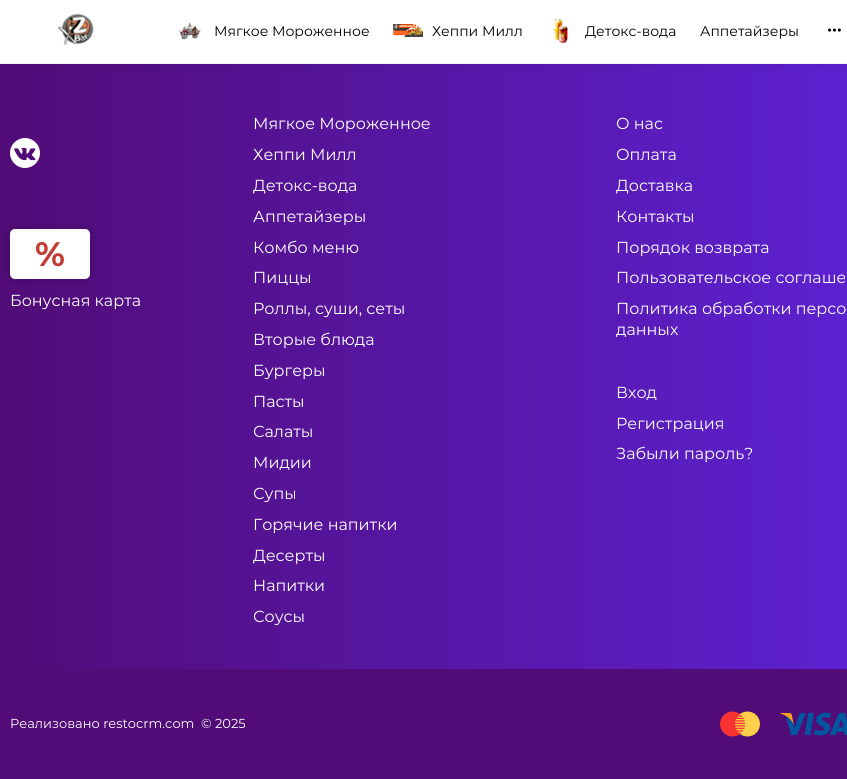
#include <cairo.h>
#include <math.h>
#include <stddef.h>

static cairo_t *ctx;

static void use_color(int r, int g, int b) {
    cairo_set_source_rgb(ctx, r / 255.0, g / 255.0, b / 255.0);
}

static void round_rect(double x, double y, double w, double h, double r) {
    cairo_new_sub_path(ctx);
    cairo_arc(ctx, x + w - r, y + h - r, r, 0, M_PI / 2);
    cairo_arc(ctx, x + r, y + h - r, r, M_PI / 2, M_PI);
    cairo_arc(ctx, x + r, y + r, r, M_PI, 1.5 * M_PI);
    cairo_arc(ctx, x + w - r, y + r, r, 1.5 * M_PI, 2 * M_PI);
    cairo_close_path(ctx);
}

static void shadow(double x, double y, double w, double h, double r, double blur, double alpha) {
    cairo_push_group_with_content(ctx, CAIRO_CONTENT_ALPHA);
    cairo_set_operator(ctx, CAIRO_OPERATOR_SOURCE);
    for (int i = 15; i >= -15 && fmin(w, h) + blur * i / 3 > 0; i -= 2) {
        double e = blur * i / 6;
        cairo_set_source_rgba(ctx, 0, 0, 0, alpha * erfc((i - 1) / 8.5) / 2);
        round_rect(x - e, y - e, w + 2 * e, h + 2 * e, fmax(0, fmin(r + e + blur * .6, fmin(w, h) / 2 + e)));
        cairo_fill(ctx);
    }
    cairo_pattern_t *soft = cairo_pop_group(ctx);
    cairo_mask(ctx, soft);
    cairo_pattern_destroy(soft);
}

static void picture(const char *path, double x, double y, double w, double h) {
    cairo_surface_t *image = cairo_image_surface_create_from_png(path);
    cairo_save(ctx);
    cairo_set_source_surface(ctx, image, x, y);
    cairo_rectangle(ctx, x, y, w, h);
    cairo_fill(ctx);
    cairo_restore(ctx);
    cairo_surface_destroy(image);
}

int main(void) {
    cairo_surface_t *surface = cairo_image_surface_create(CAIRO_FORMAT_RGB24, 847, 779);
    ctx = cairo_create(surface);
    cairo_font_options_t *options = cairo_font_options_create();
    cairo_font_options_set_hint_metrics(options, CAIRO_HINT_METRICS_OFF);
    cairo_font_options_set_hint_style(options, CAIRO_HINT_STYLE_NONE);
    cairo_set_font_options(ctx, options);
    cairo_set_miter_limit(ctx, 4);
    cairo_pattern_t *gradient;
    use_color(255, 255, 255);
    cairo_paint(ctx);
    gradient = cairo_pattern_create_linear(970, 367, 0, 366);
    cairo_pattern_add_color_stop_rgba(gradient, 0, 0.369, 0.141, 0.867, 1);
    cairo_pattern_add_color_stop_rgba(gradient, 1, 0.318, 0.047, 0.467, 1);
    cairo_set_source(ctx, gradient);
    cairo_pattern_destroy(gradient);
    cairo_rectangle(ctx, 0, 64, 847, 605);
    cairo_fill(ctx);
    use_color(0, 0, 0);
    shadow(0, 0, 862, 63, 0, 5, 0.1);
    use_color(255, 255, 255);
    cairo_rectangle(ctx, 0, 0, 847, 63);
    cairo_fill(ctx);
    picture("img1.png", 58, 13, 36, 32);
    picture("img2.png", 178, 22, 23, 18);
    cairo_select_font_face(ctx, "Montserrat", CAIRO_FONT_SLANT_NORMAL, CAIRO_FONT_WEIGHT_NORMAL);
    cairo_set_font_size(ctx, 14);
    use_color(0, 0, 0);
    cairo_move_to(ctx, 214, 36);
    cairo_show_text(ctx, "Мягкое Мороженное");
    picture("img3.png", 393, 24, 30, 13);
    cairo_move_to(ctx, 432, 36);
    cairo_show_text(ctx, "Хеппи Милл");
    picture("img4.png", 554, 19, 14, 24);
    cairo_move_to(ctx, 585, 36);
    cairo_show_text(ctx, "Детокс-вода");
    cairo_move_to(ctx, 700, 36);
    cairo_show_text(ctx, "Аппетайзеры");
    picture("img5.png", 828, 28, 13, 4);
    use_color(255, 255, 255);
    cairo_arc(ctx, 25, 153, 15, 0, 2 * M_PI);
    cairo_fill(ctx);
    picture("img6.png", 14, 147, 22, 14);
    use_color(0, 0, 0);
    shadow(10, 229, 80, 50, 5, 4.5, 0.25);
    use_color(255, 255, 255);
    round_rect(10, 229, 80, 50, 5);
    cairo_fill(ctx);
    cairo_select_font_face(ctx, "Montserrat", CAIRO_FONT_SLANT_NORMAL, CAIRO_FONT_WEIGHT_BOLD);
    cairo_set_font_size(ctx, 34);
    use_color(193, 61, 53);
    cairo_move_to(ctx, 35, 266);
    cairo_show_text(ctx, "%");
    cairo_select_font_face(ctx, "Montserrat", CAIRO_FONT_SLANT_NORMAL, CAIRO_FONT_WEIGHT_NORMAL);
    cairo_set_font_size(ctx, 16);
    use_color(255, 255, 255);
    cairo_move_to(ctx, 10, 306);
    cairo_show_text(ctx, "Бонусная карта");
    cairo_move_to(ctx, 253, 129);
    cairo_show_text(ctx, "Мягкое Мороженное");
    cairo_move_to(ctx, 253, 160);
    cairo_show_text(ctx, "Хеппи Милл");
    cairo_move_to(ctx, 253, 191);
    cairo_show_text(ctx, "Детокс-вода");
    cairo_move_to(ctx, 253, 222);
    cairo_show_text(ctx, "Аппетайзеры");
    cairo_move_to(ctx, 253, 253);
    cairo_show_text(ctx, "Комбо меню");
    cairo_move_to(ctx, 253, 283);
    cairo_show_text(ctx, "Пиццы");
    cairo_move_to(ctx, 253, 314);
    cairo_show_text(ctx, "Роллы, суши, сеты");
    cairo_move_to(ctx, 253, 345);
    cairo_show_text(ctx, "Вторые блюда");
    cairo_move_to(ctx, 253, 376);
    cairo_show_text(ctx, "Бургеры");
    cairo_move_to(ctx, 253, 407);
    cairo_show_text(ctx, "Пасты");
    cairo_move_to(ctx, 253, 437);
    cairo_show_text(ctx, "Салаты");
    cairo_move_to(ctx, 253, 468);
    cairo_show_text(ctx, "Мидии");
    cairo_move_to(ctx, 253, 499);
    cairo_show_text(ctx, "Супы");
    cairo_move_to(ctx, 253, 530);
    cairo_show_text(ctx, "Горячие напитки");
    cairo_move_to(ctx, 253, 561);
    cairo_show_text(ctx, "Десерты");
    cairo_move_to(ctx, 253, 591);
    cairo_show_text(ctx, "Напитки");
    cairo_move_to(ctx, 253, 622);
    cairo_show_text(ctx, "Соусы");
    cairo_move_to(ctx, 616, 129);
    cairo_show_text(ctx, "О нас");
    cairo_move_to(ctx, 616, 160);
    cairo_show_text(ctx, "Оплата");
    cairo_move_to(ctx, 616, 191);
    cairo_show_text(ctx, "Доставка");
    cairo_move_to(ctx, 616, 222);
    cairo_show_text(ctx, "Контакты");
    cairo_move_to(ctx, 616, 253);
    cairo_show_text(ctx, "Порядок возврата");
    cairo_move_to(ctx, 616, 283);
    cairo_show_text(ctx, "Пользовательское соглаше");
    cairo_move_to(ctx, 616, 314);
    cairo_show_text(ctx, "Политика обработки персо");
    cairo_move_to(ctx, 616, 335);
    cairo_show_text(ctx, "данных");
    cairo_move_to(ctx, 616, 398);
    cairo_show_text(ctx, "Вход");
    cairo_move_to(ctx, 616, 429);
    cairo_show_text(ctx, "Регистрация");
    cairo_move_to(ctx, 616, 459);
    cairo_show_text(ctx, "Забыли пароль?");
    use_color(81, 12, 119);
    cairo_rectangle(ctx, 0, 669, 847, 110);
    cairo_fill(ctx);
    cairo_set_font_size(ctx, 13);
    use_color(255, 255, 255);
    cairo_move_to(ctx, 10, 728);
    cairo_show_text(ctx, "Реализовано restocrm.com");
    cairo_move_to(ctx, 201, 728);
    cairo_show_text(ctx, "© 2025");
    picture("img7.png", 720, 711, 40, 26);
    picture("img8.png", 780, 712, 67, 24);
    cairo_surface_write_to_png(surface, "result.png");
    cairo_font_options_destroy(options);
    cairo_destroy(ctx);
    cairo_surface_destroy(surface);
    return 0;
}
